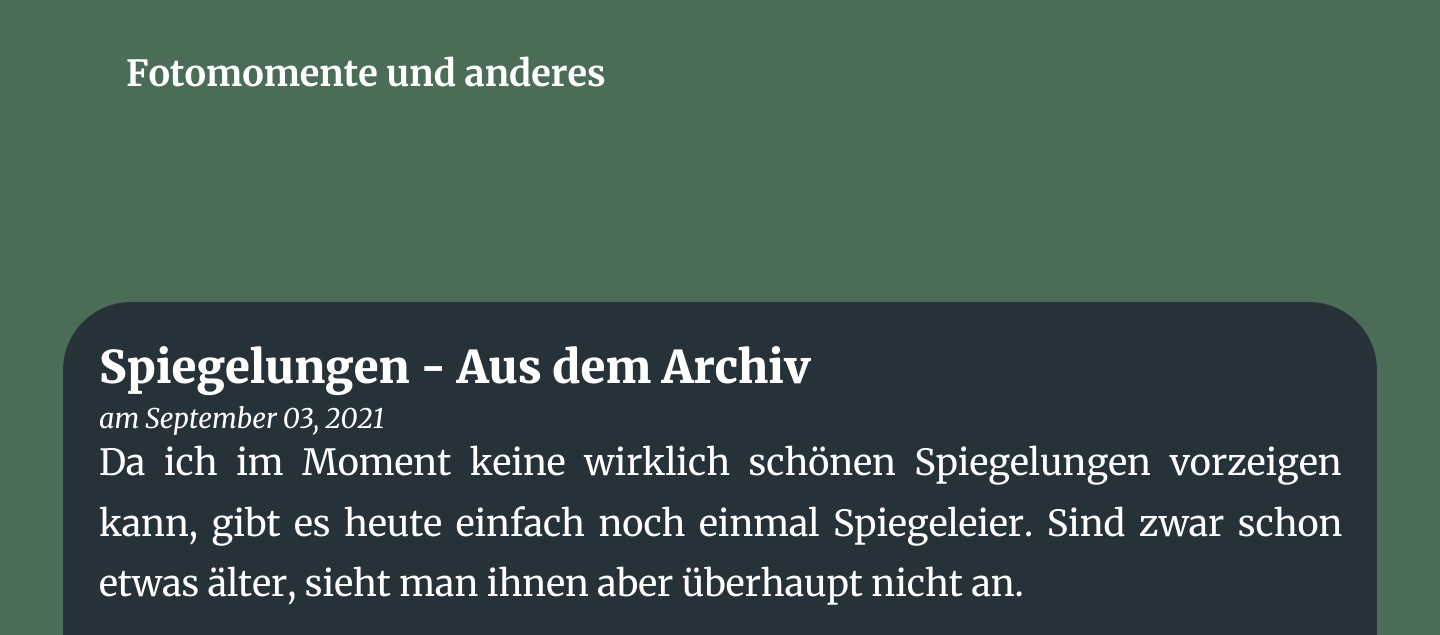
#include <cairo.h>
#include <math.h>
#include <stddef.h>

static cairo_t *ctx;

static void use_color(int r, int g, int b) {
    cairo_set_source_rgb(ctx, r / 255.0, g / 255.0, b / 255.0);
}

static void spaced_text(double x, double y, const char *s, double letter, double word) {
    cairo_move_to(ctx, x, y);
    while (*s) {
        char ch[5] = {0};
        int n = 0;
        do ch[n++] = *s++; while ((*s & 0xC0) == 0x80);
        cairo_show_text(ctx, ch);
        cairo_rel_move_to(ctx, letter + word * (*ch == ' '), 0);
    }
}

int main(void) {
    cairo_surface_t *surface = cairo_image_surface_create(CAIRO_FORMAT_RGB24, 1440, 635);
    ctx = cairo_create(surface);
    cairo_font_options_t *options = cairo_font_options_create();
    cairo_font_options_set_hint_metrics(options, CAIRO_HINT_METRICS_OFF);
    cairo_font_options_set_hint_style(options, CAIRO_HINT_STYLE_NONE);
    cairo_set_font_options(ctx, options);
    cairo_set_miter_limit(ctx, 4);
    use_color(75, 109, 87);
    cairo_paint(ctx);
    cairo_select_font_face(ctx, "Merriweather", CAIRO_FONT_SLANT_NORMAL, CAIRO_FONT_WEIGHT_BOLD);
    cairo_set_font_size(ctx, 36);
    use_color(255, 255, 255);
    cairo_move_to(ctx, 126, 86);
    cairo_show_text(ctx, "Fotomomente und anderes");
    use_color(39, 50, 56);
    cairo_new_path(ctx);
    cairo_move_to(ctx, 131, 302);
    cairo_line_to(ctx, 1309, 302);
    cairo_curve_to(ctx, 1346.5, 302, 1377, 332.5, 1377, 370);
    cairo_line_to(ctx, 1377, 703);
    cairo_line_to(ctx, 63, 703);
    cairo_line_to(ctx, 63, 370);
    cairo_curve_to(ctx, 63, 332.5, 93.5, 302, 131, 302);
    cairo_close_path(ctx);
    cairo_fill(ctx);
    cairo_select_font_face(ctx, "Merriweather Black", CAIRO_FONT_SLANT_NORMAL, CAIRO_FONT_WEIGHT_NORMAL);
    cairo_set_font_size(ctx, 45);
    use_color(255, 255, 255);
    cairo_move_to(ctx, 99, 383);
    cairo_show_text(ctx, "Spiegelungen - Aus dem Archiv");
    cairo_select_font_face(ctx, "Merriweather", CAIRO_FONT_SLANT_ITALIC, CAIRO_FONT_WEIGHT_NORMAL);
    cairo_set_font_size(ctx, 27);
    cairo_move_to(ctx, 99, 428);
    cairo_show_text(ctx, "am September 03, 2021");
    cairo_select_font_face(ctx, "Merriweather", CAIRO_FONT_SLANT_NORMAL, CAIRO_FONT_WEIGHT_NORMAL);
    cairo_set_font_size(ctx, 36);
    spaced_text(99, 475, "Da ich im Moment keine wirklich schönen Spiegelungen vorzeigen", 0, 10);
    spaced_text(99, 536, "kann, gibt es heute einfach noch einmal Spiegeleier. Sind zwar schon", 0, 5);
    cairo_move_to(ctx, 99, 596);
    cairo_show_text(ctx, "etwas älter, sieht man ihnen aber überhaupt nicht an.");
    cairo_surface_write_to_png(surface, "result.png");
    cairo_font_options_destroy(options);
    cairo_destroy(ctx);
    cairo_surface_destroy(surface);
    return 0;
}
